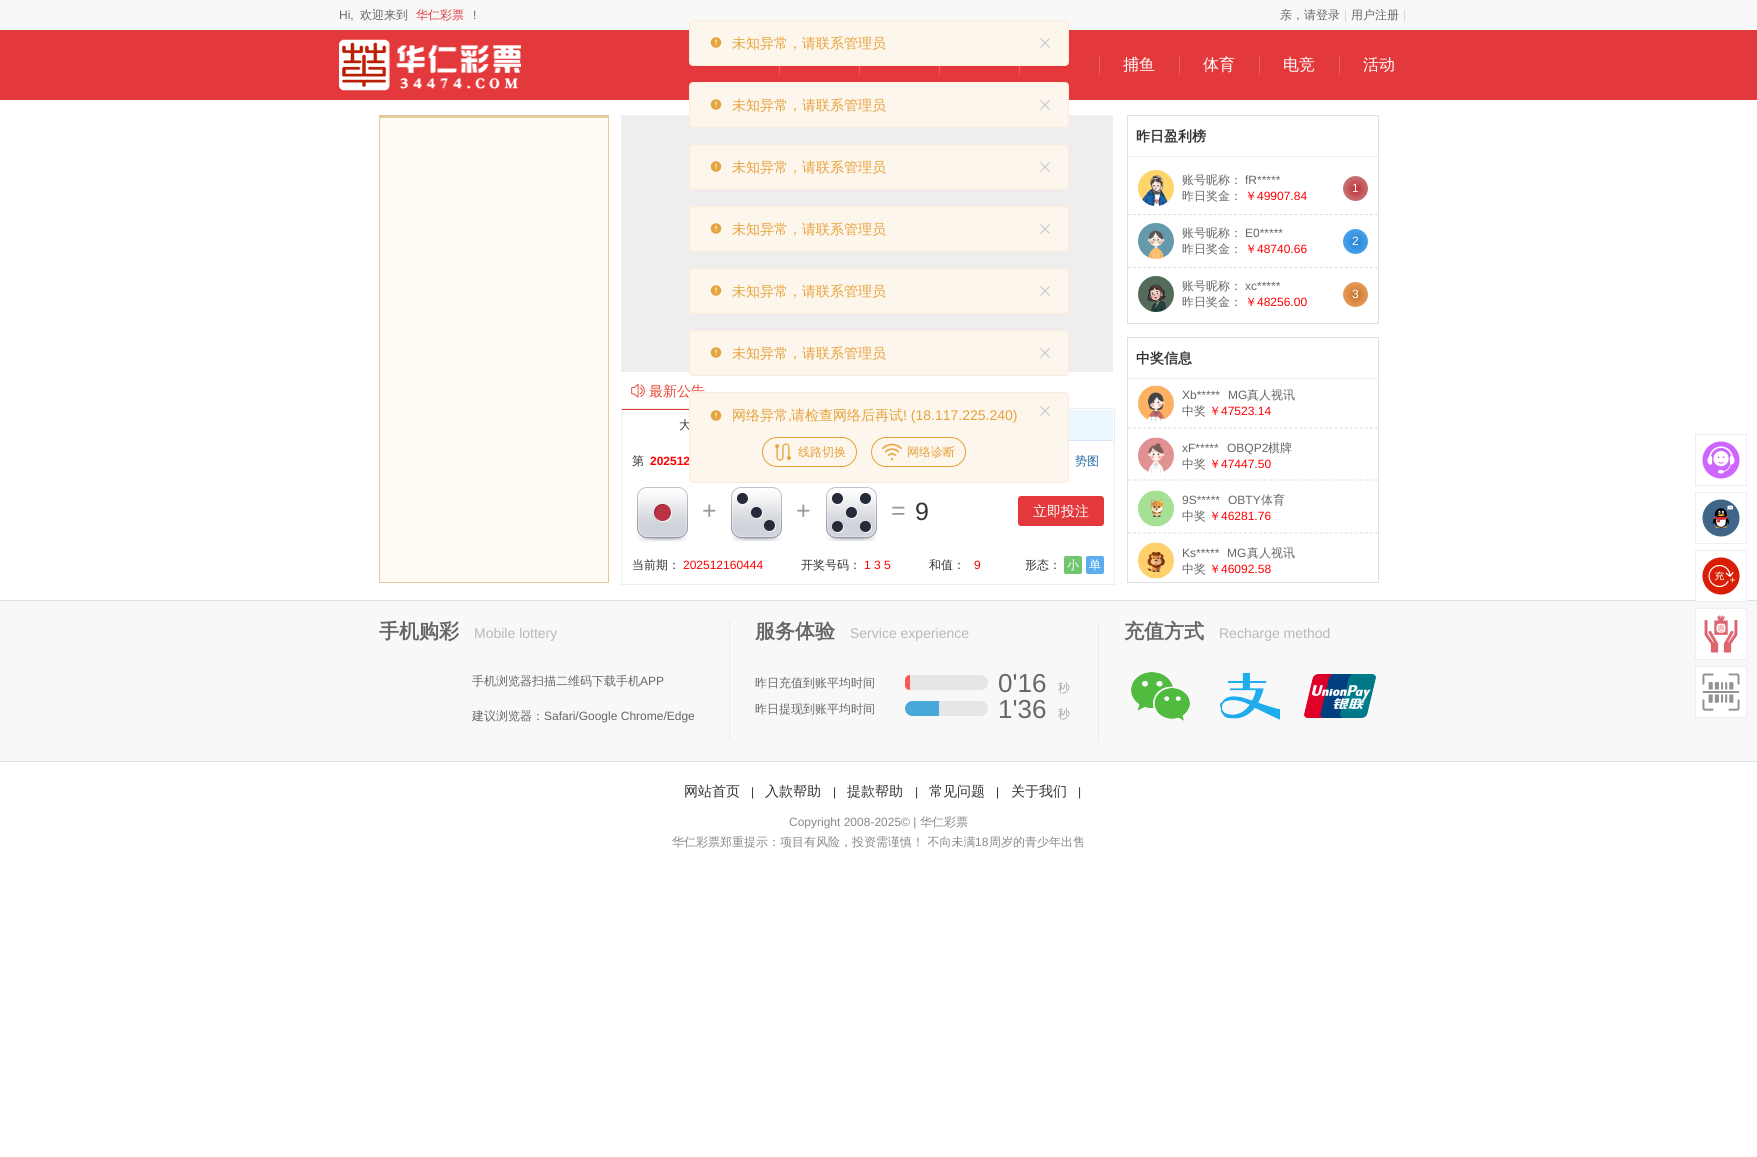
#include <cairo.h>
#include <math.h>
#include <stddef.h>

static cairo_t *ctx;

static void use_color(int r, int g, int b) {
    cairo_set_source_rgb(ctx, r / 255.0, g / 255.0, b / 255.0);
}

static void round_rect(double x, double y, double w, double h, double r) {
    cairo_new_sub_path(ctx);
    cairo_arc(ctx, x + w - r, y + h - r, r, 0, M_PI / 2);
    cairo_arc(ctx, x + r, y + h - r, r, M_PI / 2, M_PI);
    cairo_arc(ctx, x + r, y + r, r, M_PI, 1.5 * M_PI);
    cairo_arc(ctx, x + w - r, y + r, r, 1.5 * M_PI, 2 * M_PI);
    cairo_close_path(ctx);
}

static void picture(const char *path, double x, double y, double w, double h) {
    cairo_surface_t *image = cairo_image_surface_create_from_png(path);
    cairo_save(ctx);
    cairo_set_source_surface(ctx, image, x, y);
    cairo_rectangle(ctx, x, y, w, h);
    cairo_fill(ctx);
    cairo_restore(ctx);
    cairo_surface_destroy(image);
}

int main(void) {
    cairo_surface_t *surface = cairo_image_surface_create(CAIRO_FORMAT_RGB24, 1757, 1157);
    ctx = cairo_create(surface);
    cairo_font_options_t *options = cairo_font_options_create();
    cairo_font_options_set_hint_metrics(options, CAIRO_HINT_METRICS_OFF);
    cairo_font_options_set_hint_style(options, CAIRO_HINT_STYLE_NONE);
    cairo_set_font_options(ctx, options);
    cairo_set_miter_limit(ctx, 4);
    cairo_pattern_t *gradient;
    use_color(255, 255, 255);
    cairo_paint(ctx);
    use_color(248, 248, 248);
    cairo_rectangle(ctx, 0, 0, 1757, 30);
    cairo_fill(ctx);
    cairo_select_font_face(ctx, "Liberation Sans", CAIRO_FONT_SLANT_NORMAL, CAIRO_FONT_WEIGHT_NORMAL);
    cairo_set_font_size(ctx, 12);
    use_color(102, 102, 102);
    cairo_move_to(ctx, 339, 19);
    cairo_show_text(ctx, "Hi,");
    cairo_select_font_face(ctx, "WenQuanYi Zen Hei Medium", CAIRO_FONT_SLANT_NORMAL, CAIRO_FONT_WEIGHT_NORMAL);
    cairo_move_to(ctx, 360, 19);
    cairo_show_text(ctx, "欢迎来到");
    use_color(220, 59, 64);
    cairo_move_to(ctx, 416, 19);
    cairo_show_text(ctx, "华仁彩票");
    cairo_select_font_face(ctx, "Liberation Sans", CAIRO_FONT_SLANT_NORMAL, CAIRO_FONT_WEIGHT_NORMAL);
    use_color(102, 102, 102);
    cairo_move_to(ctx, 473, 19);
    cairo_show_text(ctx, "!");
    cairo_select_font_face(ctx, "WenQuanYi Zen Hei Medium", CAIRO_FONT_SLANT_NORMAL, CAIRO_FONT_WEIGHT_NORMAL);
    cairo_move_to(ctx, 1280, 19);
    cairo_show_text(ctx, "亲，请登录");
    cairo_select_font_face(ctx, "Liberation Sans", CAIRO_FONT_SLANT_NORMAL, CAIRO_FONT_WEIGHT_NORMAL);
    use_color(215, 215, 215);
    cairo_move_to(ctx, 1344, 19);
    cairo_show_text(ctx, "|");
    cairo_select_font_face(ctx, "WenQuanYi Zen Hei Medium", CAIRO_FONT_SLANT_NORMAL, CAIRO_FONT_WEIGHT_NORMAL);
    use_color(102, 102, 102);
    cairo_move_to(ctx, 1351, 19);
    cairo_show_text(ctx, "用户注册");
    cairo_select_font_face(ctx, "Liberation Sans", CAIRO_FONT_SLANT_NORMAL, CAIRO_FONT_WEIGHT_NORMAL);
    use_color(215, 215, 215);
    cairo_move_to(ctx, 1403, 19);
    cairo_show_text(ctx, "|");
    use_color(228, 57, 60);
    cairo_rectangle(ctx, 0, 30, 1757, 70);
    cairo_fill(ctx);
    picture("img1.png", 339, 39, 182, 52);
    use_color(233, 97, 99);
    cairo_rectangle(ctx, 779, 66, 1, 9);
    cairo_fill(ctx);
    cairo_rectangle(ctx, 859, 66, 1, 9);
    cairo_fill(ctx);
    cairo_rectangle(ctx, 939, 66, 1, 9);
    cairo_fill(ctx);
    cairo_rectangle(ctx, 1019, 66, 1, 9);
    cairo_fill(ctx);
    cairo_rectangle(ctx, 1099, 55, 1, 20);
    cairo_fill(ctx);
    cairo_select_font_face(ctx, "WenQuanYi Zen Hei Medium", CAIRO_FONT_SLANT_NORMAL, CAIRO_FONT_WEIGHT_NORMAL);
    cairo_set_font_size(ctx, 16);
    use_color(255, 255, 255);
    cairo_move_to(ctx, 1123, 70);
    cairo_show_text(ctx, "捕鱼");
    use_color(233, 97, 99);
    cairo_rectangle(ctx, 1179, 55, 1, 20);
    cairo_fill(ctx);
    use_color(255, 255, 255);
    cairo_move_to(ctx, 1203, 70);
    cairo_show_text(ctx, "体育");
    use_color(233, 97, 99);
    cairo_rectangle(ctx, 1259, 55, 1, 20);
    cairo_fill(ctx);
    use_color(255, 255, 255);
    cairo_move_to(ctx, 1283, 70);
    cairo_show_text(ctx, "电竞");
    use_color(233, 97, 99);
    cairo_rectangle(ctx, 1339, 55, 1, 20);
    cairo_fill(ctx);
    use_color(255, 255, 255);
    cairo_move_to(ctx, 1363, 70);
    cairo_show_text(ctx, "活动");
    use_color(255, 253, 243);
    cairo_rectangle(ctx, 380, 118, 228, 464);
    cairo_fill(ctx);
    use_color(230, 201, 160);
    cairo_rectangle(ctx, 379, 115, 230, 3);
    cairo_fill(ctx);
    cairo_rectangle(ctx, 608, 115, 1, 468);
    cairo_fill(ctx);
    cairo_rectangle(ctx, 379, 582, 230, 1);
    cairo_fill(ctx);
    cairo_rectangle(ctx, 379, 115, 1, 468);
    cairo_fill(ctx);
    use_color(238, 238, 238);
    cairo_rectangle(ctx, 621, 115, 492, 257);
    cairo_fill(ctx);
    picture("img2.png", 631, 383, 14, 15);
    cairo_set_font_size(ctx, 14);
    use_color(233, 67, 53);
    cairo_move_to(ctx, 649, 396);
    cairo_show_text(ctx, "最新公告");
    cairo_rectangle(ctx, 621.5, 408.5, 493, 176);
    use_color(237, 237, 237);
    cairo_set_line_width(ctx, 1);
    cairo_stroke(ctx);
    use_color(228, 57, 60);
    cairo_rectangle(ctx, 622, 409, 67, 1);
    cairo_fill(ctx);
    cairo_set_font_size(ctx, 12);
    use_color(51, 51, 51);
    cairo_move_to(ctx, 679, 429);
    cairo_show_text(ctx, "大");
    use_color(237, 247, 255);
    cairo_rectangle(ctx, 1069, 410, 44, 30);
    cairo_fill(ctx);
    use_color(215, 226, 247);
    cairo_rectangle(ctx, 1069, 440, 44, 1);
    cairo_fill(ctx);
    use_color(51, 51, 51);
    cairo_move_to(ctx, 632, 465);
    cairo_show_text(ctx, "第");
    cairo_select_font_face(ctx, "Liberation Sans", CAIRO_FONT_SLANT_NORMAL, CAIRO_FONT_WEIGHT_BOLD);
    use_color(255, 0, 0);
    cairo_move_to(ctx, 650, 465);
    cairo_show_text(ctx, "202512");
    cairo_select_font_face(ctx, "WenQuanYi Zen Hei Medium", CAIRO_FONT_SLANT_NORMAL, CAIRO_FONT_WEIGHT_NORMAL);
    use_color(37, 104, 167);
    cairo_move_to(ctx, 1075, 465);
    cairo_show_text(ctx, "势图");
    picture("img3.png", 637, 487, 51, 55);
    cairo_select_font_face(ctx, "Liberation Sans", CAIRO_FONT_SLANT_NORMAL, CAIRO_FONT_WEIGHT_NORMAL);
    cairo_set_font_size(ctx, 25);
    use_color(153, 153, 153);
    cairo_move_to(ctx, 702, 519);
    cairo_show_text(ctx, "+");
    picture("img4.png", 731, 487, 51, 55);
    cairo_move_to(ctx, 796, 519);
    cairo_show_text(ctx, "+");
    picture("img5.png", 826, 487, 51, 55);
    cairo_move_to(ctx, 891, 519);
    cairo_show_text(ctx, "=");
    use_color(51, 51, 51);
    cairo_move_to(ctx, 915, 520);
    cairo_show_text(ctx, "9");
    cairo_select_font_face(ctx, "WenQuanYi Zen Hei Medium", CAIRO_FONT_SLANT_NORMAL, CAIRO_FONT_WEIGHT_NORMAL);
    cairo_set_font_size(ctx, 12);
    cairo_move_to(ctx, 632, 569);
    cairo_show_text(ctx, "当前期：");
    cairo_select_font_face(ctx, "Liberation Sans", CAIRO_FONT_SLANT_NORMAL, CAIRO_FONT_WEIGHT_NORMAL);
    use_color(255, 0, 0);
    cairo_move_to(ctx, 683, 569);
    cairo_show_text(ctx, "202512160444");
    cairo_select_font_face(ctx, "WenQuanYi Zen Hei Medium", CAIRO_FONT_SLANT_NORMAL, CAIRO_FONT_WEIGHT_NORMAL);
    use_color(51, 51, 51);
    cairo_move_to(ctx, 801, 569);
    cairo_show_text(ctx, "开奖号码：");
    cairo_select_font_face(ctx, "Liberation Sans", CAIRO_FONT_SLANT_NORMAL, CAIRO_FONT_WEIGHT_NORMAL);
    use_color(255, 0, 0);
    cairo_move_to(ctx, 864, 569);
    cairo_show_text(ctx, "1 3 5");
    cairo_select_font_face(ctx, "WenQuanYi Zen Hei Medium", CAIRO_FONT_SLANT_NORMAL, CAIRO_FONT_WEIGHT_NORMAL);
    use_color(51, 51, 51);
    cairo_move_to(ctx, 929, 569);
    cairo_show_text(ctx, "和值：");
    cairo_select_font_face(ctx, "Liberation Sans", CAIRO_FONT_SLANT_NORMAL, CAIRO_FONT_WEIGHT_NORMAL);
    use_color(255, 0, 0);
    cairo_move_to(ctx, 974, 569);
    cairo_show_text(ctx, "9");
    cairo_select_font_face(ctx, "WenQuanYi Zen Hei Medium", CAIRO_FONT_SLANT_NORMAL, CAIRO_FONT_WEIGHT_NORMAL);
    use_color(51, 51, 51);
    cairo_move_to(ctx, 1025, 569);
    cairo_show_text(ctx, "形态：");
    use_color(113, 198, 113);
    round_rect(1064, 556, 18, 18, 2);
    cairo_fill(ctx);
    use_color(255, 255, 255);
    cairo_move_to(ctx, 1067, 569);
    cairo_show_text(ctx, "小");
    use_color(92, 172, 238);
    round_rect(1086, 556, 18, 18, 2);
    cairo_fill(ctx);
    use_color(255, 255, 255);
    cairo_move_to(ctx, 1089, 569);
    cairo_show_text(ctx, "单");
    use_color(228, 57, 60);
    round_rect(1018, 496, 86, 30, 3);
    cairo_fill(ctx);
    cairo_set_font_size(ctx, 14);
    use_color(255, 255, 255);
    cairo_move_to(ctx, 1033, 516);
    cairo_show_text(ctx, "立即投注");
    cairo_rectangle(ctx, 1127.5, 115.5, 251, 208);
    use_color(220, 225, 229);
    cairo_stroke(ctx);
    use_color(238, 238, 238);
    cairo_rectangle(ctx, 1128, 156, 250, 1);
    cairo_fill(ctx);
    cairo_select_font_face(ctx, "WenQuanYi Zen Hei", CAIRO_FONT_SLANT_NORMAL, CAIRO_FONT_WEIGHT_BOLD);
    use_color(51, 51, 51);
    cairo_move_to(ctx, 1136, 141);
    cairo_show_text(ctx, "昨日盈利榜");
    cairo_new_path(ctx);
    cairo_move_to(ctx, 1128, 214.5);
    cairo_line_to(ctx, 1378, 214.5);
    use_color(221, 221, 221);
    cairo_set_dash(ctx, (double[]){3, 2.04}, 2, 0);
    cairo_stroke(ctx);
    picture("img6.png", 1138, 170, 36, 36);
    cairo_select_font_face(ctx, "WenQuanYi Zen Hei Medium", CAIRO_FONT_SLANT_NORMAL, CAIRO_FONT_WEIGHT_NORMAL);
    cairo_set_font_size(ctx, 12);
    use_color(102, 102, 102);
    cairo_move_to(ctx, 1182, 184);
    cairo_show_text(ctx, "账号昵称：");
    cairo_select_font_face(ctx, "Liberation Sans", CAIRO_FONT_SLANT_NORMAL, CAIRO_FONT_WEIGHT_NORMAL);
    cairo_move_to(ctx, 1245, 184);
    cairo_show_text(ctx, "fR*****");
    cairo_select_font_face(ctx, "WenQuanYi Zen Hei Medium", CAIRO_FONT_SLANT_NORMAL, CAIRO_FONT_WEIGHT_NORMAL);
    cairo_move_to(ctx, 1182, 200);
    cairo_show_text(ctx, "昨日奖金：");
    use_color(255, 0, 0);
    cairo_move_to(ctx, 1245, 200);
    cairo_show_text(ctx, "￥");
    cairo_select_font_face(ctx, "Liberation Sans", CAIRO_FONT_SLANT_NORMAL, CAIRO_FONT_WEIGHT_NORMAL);
    cairo_move_to(ctx, 1257, 200);
    cairo_show_text(ctx, "49907.84");
    gradient = cairo_pattern_create_radial(1356, 189, 0, 1356, 189, 18);
    cairo_pattern_add_color_stop_rgba(gradient, 0, 0.757, 0.184, 0.2, 1);
    cairo_pattern_add_color_stop_rgba(gradient, 1, 0.792, 0.573, 0.576, 1);
    cairo_set_source(ctx, gradient);
    cairo_pattern_destroy(gradient);
    cairo_new_path(ctx);
    cairo_arc(ctx, 1355.5, 188.5, 12.5, 0, 2 * M_PI);
    cairo_fill(ctx);
    use_color(255, 255, 255);
    cairo_move_to(ctx, 1352, 192);
    cairo_show_text(ctx, "1");
    cairo_new_path(ctx);
    cairo_move_to(ctx, 1128, 267.5);
    cairo_line_to(ctx, 1378, 267.5);
    use_color(221, 221, 221);
    cairo_stroke(ctx);
    picture("img7.png", 1138, 223, 36, 36);
    cairo_select_font_face(ctx, "WenQuanYi Zen Hei Medium", CAIRO_FONT_SLANT_NORMAL, CAIRO_FONT_WEIGHT_NORMAL);
    use_color(102, 102, 102);
    cairo_move_to(ctx, 1182, 237);
    cairo_show_text(ctx, "账号昵称：");
    cairo_select_font_face(ctx, "Liberation Sans", CAIRO_FONT_SLANT_NORMAL, CAIRO_FONT_WEIGHT_NORMAL);
    cairo_move_to(ctx, 1245, 237);
    cairo_show_text(ctx, "E0*****");
    cairo_select_font_face(ctx, "WenQuanYi Zen Hei Medium", CAIRO_FONT_SLANT_NORMAL, CAIRO_FONT_WEIGHT_NORMAL);
    cairo_move_to(ctx, 1182, 253);
    cairo_show_text(ctx, "昨日奖金：");
    use_color(255, 0, 0);
    cairo_move_to(ctx, 1245, 253);
    cairo_show_text(ctx, "￥");
    cairo_select_font_face(ctx, "Liberation Sans", CAIRO_FONT_SLANT_NORMAL, CAIRO_FONT_WEIGHT_NORMAL);
    cairo_move_to(ctx, 1257, 253);
    cairo_show_text(ctx, "48740.66");
    gradient = cairo_pattern_create_radial(1356, 242, 0, 1356, 242, 18);
    cairo_pattern_add_color_stop_rgba(gradient, 0, 0.169, 0.51, 0.8, 1);
    cairo_pattern_add_color_stop_rgba(gradient, 1, 0.325, 0.69, 0.996, 1);
    cairo_set_source(ctx, gradient);
    cairo_pattern_destroy(gradient);
    cairo_new_path(ctx);
    cairo_arc(ctx, 1355.5, 241.5, 12.5, 0, 2 * M_PI);
    cairo_fill(ctx);
    use_color(255, 255, 255);
    cairo_move_to(ctx, 1352, 245);
    cairo_show_text(ctx, "2");
    picture("img8.png", 1138, 276, 36, 36);
    cairo_select_font_face(ctx, "WenQuanYi Zen Hei Medium", CAIRO_FONT_SLANT_NORMAL, CAIRO_FONT_WEIGHT_NORMAL);
    use_color(102, 102, 102);
    cairo_move_to(ctx, 1182, 290);
    cairo_show_text(ctx, "账号昵称：");
    cairo_select_font_face(ctx, "Liberation Sans", CAIRO_FONT_SLANT_NORMAL, CAIRO_FONT_WEIGHT_NORMAL);
    cairo_move_to(ctx, 1245, 290);
    cairo_show_text(ctx, "xc*****");
    cairo_select_font_face(ctx, "WenQuanYi Zen Hei Medium", CAIRO_FONT_SLANT_NORMAL, CAIRO_FONT_WEIGHT_NORMAL);
    cairo_move_to(ctx, 1182, 306);
    cairo_show_text(ctx, "昨日奖金：");
    use_color(255, 0, 0);
    cairo_move_to(ctx, 1245, 306);
    cairo_show_text(ctx, "￥");
    cairo_select_font_face(ctx, "Liberation Sans", CAIRO_FONT_SLANT_NORMAL, CAIRO_FONT_WEIGHT_NORMAL);
    cairo_move_to(ctx, 1257, 306);
    cairo_show_text(ctx, "48256.00");
    gradient = cairo_pattern_create_radial(1356, 295, 0, 1356, 295, 18);
    cairo_pattern_add_color_stop_rgba(gradient, 0, 0.773, 0.459, 0.196, 1);
    cairo_pattern_add_color_stop_rgba(gradient, 1, 0.973, 0.663, 0.408, 1);
    cairo_set_source(ctx, gradient);
    cairo_pattern_destroy(gradient);
    cairo_new_path(ctx);
    cairo_arc(ctx, 1355.5, 294.5, 12.5, 0, 2 * M_PI);
    cairo_fill(ctx);
    use_color(255, 255, 255);
    cairo_move_to(ctx, 1352, 298);
    cairo_show_text(ctx, "3");
    cairo_rectangle(ctx, 1127.5, 337.5, 251, 245);
    use_color(220, 225, 229);
    cairo_set_dash(ctx, NULL, 0, 0);
    cairo_stroke(ctx);
    use_color(238, 238, 238);
    cairo_rectangle(ctx, 1128, 378, 250, 1);
    cairo_fill(ctx);
    cairo_select_font_face(ctx, "WenQuanYi Zen Hei", CAIRO_FONT_SLANT_NORMAL, CAIRO_FONT_WEIGHT_BOLD);
    cairo_set_font_size(ctx, 14);
    use_color(51, 51, 51);
    cairo_move_to(ctx, 1136, 363);
    cairo_show_text(ctx, "中奖信息");
    cairo_new_path(ctx);
    cairo_move_to(ctx, 1128, 428);
    cairo_line_to(ctx, 1378, 428);
    use_color(221, 221, 221);
    cairo_set_dash(ctx, (double[]){3, 2.04}, 2, 0);
    cairo_stroke(ctx);
    picture("img9.png", 1138, 385, 36, 37);
    cairo_select_font_face(ctx, "Liberation Sans", CAIRO_FONT_SLANT_NORMAL, CAIRO_FONT_WEIGHT_NORMAL);
    cairo_set_font_size(ctx, 12);
    use_color(102, 102, 102);
    cairo_move_to(ctx, 1182, 399);
    cairo_show_text(ctx, "Xb*****");
    cairo_move_to(ctx, 1228, 399);
    cairo_show_text(ctx, "MG");
    cairo_select_font_face(ctx, "WenQuanYi Zen Hei Medium", CAIRO_FONT_SLANT_NORMAL, CAIRO_FONT_WEIGHT_NORMAL);
    cairo_move_to(ctx, 1247, 399);
    cairo_show_text(ctx, "真人视讯");
    cairo_move_to(ctx, 1182, 415);
    cairo_show_text(ctx, "中奖");
    use_color(255, 0, 0);
    cairo_move_to(ctx, 1209, 415);
    cairo_show_text(ctx, "￥");
    cairo_select_font_face(ctx, "Liberation Sans", CAIRO_FONT_SLANT_NORMAL, CAIRO_FONT_WEIGHT_NORMAL);
    cairo_move_to(ctx, 1221, 415);
    cairo_show_text(ctx, "47523.14");
    cairo_new_path(ctx);
    cairo_move_to(ctx, 1128, 480);
    cairo_line_to(ctx, 1378, 480);
    use_color(221, 221, 221);
    cairo_stroke(ctx);
    picture("img10.png", 1138, 437, 36, 36);
    use_color(102, 102, 102);
    cairo_move_to(ctx, 1182, 452);
    cairo_show_text(ctx, "xF*****");
    cairo_move_to(ctx, 1227, 452);
    cairo_show_text(ctx, "OBQP2");
    cairo_select_font_face(ctx, "WenQuanYi Zen Hei Medium", CAIRO_FONT_SLANT_NORMAL, CAIRO_FONT_WEIGHT_NORMAL);
    cairo_move_to(ctx, 1268, 452);
    cairo_show_text(ctx, "棋牌");
    cairo_move_to(ctx, 1182, 468);
    cairo_show_text(ctx, "中奖");
    use_color(255, 0, 0);
    cairo_move_to(ctx, 1209, 468);
    cairo_show_text(ctx, "￥");
    cairo_select_font_face(ctx, "Liberation Sans", CAIRO_FONT_SLANT_NORMAL, CAIRO_FONT_WEIGHT_NORMAL);
    cairo_move_to(ctx, 1221, 468);
    cairo_show_text(ctx, "47447.50");
    cairo_new_path(ctx);
    cairo_move_to(ctx, 1128, 533);
    cairo_line_to(ctx, 1378, 533);
    use_color(221, 221, 221);
    cairo_stroke(ctx);
    picture("img11.png", 1138, 490, 36, 37);
    use_color(102, 102, 102);
    cairo_move_to(ctx, 1182, 504);
    cairo_show_text(ctx, "9S*****");
    cairo_move_to(ctx, 1228, 504);
    cairo_show_text(ctx, "OBTY");
    cairo_select_font_face(ctx, "WenQuanYi Zen Hei Medium", CAIRO_FONT_SLANT_NORMAL, CAIRO_FONT_WEIGHT_NORMAL);
    cairo_move_to(ctx, 1261, 504);
    cairo_show_text(ctx, "体育");
    cairo_move_to(ctx, 1182, 520);
    cairo_show_text(ctx, "中奖");
    use_color(255, 0, 0);
    cairo_move_to(ctx, 1209, 520);
    cairo_show_text(ctx, "￥");
    cairo_select_font_face(ctx, "Liberation Sans", CAIRO_FONT_SLANT_NORMAL, CAIRO_FONT_WEIGHT_NORMAL);
    cairo_move_to(ctx, 1221, 520);
    cairo_show_text(ctx, "46281.76");
    picture("img12.png", 1138, 542, 36, 37);
    use_color(102, 102, 102);
    cairo_move_to(ctx, 1182, 557);
    cairo_show_text(ctx, "Ks*****");
    cairo_move_to(ctx, 1227, 557);
    cairo_show_text(ctx, "MG");
    cairo_select_font_face(ctx, "WenQuanYi Zen Hei Medium", CAIRO_FONT_SLANT_NORMAL, CAIRO_FONT_WEIGHT_NORMAL);
    cairo_move_to(ctx, 1247, 557);
    cairo_show_text(ctx, "真人视讯");
    cairo_move_to(ctx, 1182, 573);
    cairo_show_text(ctx, "中奖");
    use_color(255, 0, 0);
    cairo_move_to(ctx, 1209, 573);
    cairo_show_text(ctx, "￥");
    cairo_select_font_face(ctx, "Liberation Sans", CAIRO_FONT_SLANT_NORMAL, CAIRO_FONT_WEIGHT_NORMAL);
    cairo_move_to(ctx, 1221, 573);
    cairo_show_text(ctx, "46092.58");
    use_color(248, 248, 248);
    cairo_rectangle(ctx, 0, 601, 1757, 160);
    cairo_fill(ctx);
    use_color(220, 225, 229);
    cairo_rectangle(ctx, 0, 600, 1757, 1);
    cairo_fill(ctx);
    cairo_rectangle(ctx, 0, 761, 1757, 1);
    cairo_fill(ctx);
    cairo_select_font_face(ctx, "WenQuanYi Zen Hei", CAIRO_FONT_SLANT_NORMAL, CAIRO_FONT_WEIGHT_BOLD);
    cairo_set_font_size(ctx, 20);
    use_color(102, 102, 102);
    cairo_move_to(ctx, 379, 638);
    cairo_show_text(ctx, "手机购彩");
    cairo_select_font_face(ctx, "Liberation Sans", CAIRO_FONT_SLANT_NORMAL, CAIRO_FONT_WEIGHT_NORMAL);
    cairo_set_font_size(ctx, 14);
    use_color(184, 184, 184);
    cairo_move_to(ctx, 474, 638);
    cairo_show_text(ctx, "Mobile lottery");
    cairo_select_font_face(ctx, "WenQuanYi Zen Hei Medium", CAIRO_FONT_SLANT_NORMAL, CAIRO_FONT_WEIGHT_NORMAL);
    cairo_set_font_size(ctx, 12);
    use_color(102, 102, 102);
    cairo_move_to(ctx, 472, 685);
    cairo_show_text(ctx, "手机浏览器扫描二维码下载手机");
    cairo_select_font_face(ctx, "Liberation Sans", CAIRO_FONT_SLANT_NORMAL, CAIRO_FONT_WEIGHT_NORMAL);
    cairo_move_to(ctx, 640, 685);
    cairo_show_text(ctx, "APP");
    cairo_select_font_face(ctx, "WenQuanYi Zen Hei Medium", CAIRO_FONT_SLANT_NORMAL, CAIRO_FONT_WEIGHT_NORMAL);
    cairo_move_to(ctx, 472, 720);
    cairo_show_text(ctx, "建议浏览器：");
    cairo_select_font_face(ctx, "Liberation Sans", CAIRO_FONT_SLANT_NORMAL, CAIRO_FONT_WEIGHT_NORMAL);
    cairo_move_to(ctx, 544, 720);
    cairo_show_text(ctx, "Safari/Google Chrome/Edge");
    use_color(235, 235, 235);
    cairo_rectangle(ctx, 1098, 621, 1, 120);
    cairo_fill(ctx);
    cairo_rectangle(ctx, 729, 621, 1, 120);
    cairo_fill(ctx);
    cairo_select_font_face(ctx, "WenQuanYi Zen Hei", CAIRO_FONT_SLANT_NORMAL, CAIRO_FONT_WEIGHT_BOLD);
    cairo_set_font_size(ctx, 20);
    use_color(102, 102, 102);
    cairo_move_to(ctx, 755, 638);
    cairo_show_text(ctx, "服务体验");
    cairo_select_font_face(ctx, "Liberation Sans", CAIRO_FONT_SLANT_NORMAL, CAIRO_FONT_WEIGHT_NORMAL);
    cairo_set_font_size(ctx, 14);
    use_color(184, 184, 184);
    cairo_move_to(ctx, 850, 638);
    cairo_show_text(ctx, "Service experience");
    cairo_select_font_face(ctx, "WenQuanYi Zen Hei Medium", CAIRO_FONT_SLANT_NORMAL, CAIRO_FONT_WEIGHT_NORMAL);
    cairo_set_font_size(ctx, 12);
    use_color(102, 102, 102);
    cairo_move_to(ctx, 755, 687);
    cairo_show_text(ctx, "昨日充值到账平均时间");
    use_color(230, 230, 230);
    round_rect(905, 675, 83, 15, 7.5);
    cairo_fill(ctx);
    use_color(253, 87, 87);
    cairo_new_path(ctx);
    cairo_move_to(ctx, 910, 675);
    cairo_line_to(ctx, 910, 690);
    cairo_curve_to(ctx, 907, 690, 905, 688, 905, 685);
    cairo_line_to(ctx, 905, 680);
    cairo_curve_to(ctx, 905, 677, 907, 675, 910, 675);
    cairo_close_path(ctx);
    cairo_fill(ctx);
    cairo_select_font_face(ctx, "Liberation Sans", CAIRO_FONT_SLANT_NORMAL, CAIRO_FONT_WEIGHT_NORMAL);
    cairo_set_font_size(ctx, 26);
    use_color(102, 102, 102);
    cairo_move_to(ctx, 998, 692);
    cairo_show_text(ctx, "0'16");
    cairo_select_font_face(ctx, "WenQuanYi Zen Hei Medium", CAIRO_FONT_SLANT_NORMAL, CAIRO_FONT_WEIGHT_NORMAL);
    cairo_set_font_size(ctx, 12);
    use_color(166, 166, 166);
    cairo_move_to(ctx, 1058, 692);
    cairo_show_text(ctx, "秒");
    use_color(102, 102, 102);
    cairo_move_to(ctx, 755, 713);
    cairo_show_text(ctx, "昨日提现到账平均时间");
    use_color(230, 230, 230);
    round_rect(905, 701, 83, 15, 7.5);
    cairo_fill(ctx);
    use_color(74, 169, 219);
    cairo_new_path(ctx);
    cairo_move_to(ctx, 912.5, 701);
    cairo_line_to(ctx, 939, 701);
    cairo_line_to(ctx, 939, 716);
    cairo_line_to(ctx, 912.5, 716);
    cairo_curve_to(ctx, 908.5, 716, 905, 712.5, 905, 708.5);
    cairo_curve_to(ctx, 905, 704.5, 908.5, 701, 912.5, 701);
    cairo_close_path(ctx);
    cairo_fill(ctx);
    cairo_select_font_face(ctx, "Liberation Sans", CAIRO_FONT_SLANT_NORMAL, CAIRO_FONT_WEIGHT_NORMAL);
    cairo_set_font_size(ctx, 26);
    use_color(102, 102, 102);
    cairo_move_to(ctx, 998, 718);
    cairo_show_text(ctx, "1'36");
    cairo_select_font_face(ctx, "WenQuanYi Zen Hei Medium", CAIRO_FONT_SLANT_NORMAL, CAIRO_FONT_WEIGHT_NORMAL);
    cairo_set_font_size(ctx, 12);
    use_color(166, 166, 166);
    cairo_move_to(ctx, 1058, 718);
    cairo_show_text(ctx, "秒");
    cairo_select_font_face(ctx, "WenQuanYi Zen Hei", CAIRO_FONT_SLANT_NORMAL, CAIRO_FONT_WEIGHT_BOLD);
    cairo_set_font_size(ctx, 20);
    use_color(102, 102, 102);
    cairo_move_to(ctx, 1124, 638);
    cairo_show_text(ctx, "充值方式");
    cairo_select_font_face(ctx, "Liberation Sans", CAIRO_FONT_SLANT_NORMAL, CAIRO_FONT_WEIGHT_NORMAL);
    cairo_set_font_size(ctx, 14);
    use_color(184, 184, 184);
    cairo_move_to(ctx, 1219, 638);
    cairo_show_text(ctx, "Recharge method");
    picture("img13.png", 1131, 672, 59, 49);
    picture("img14.png", 1214, 673, 66, 47);
    picture("img15.png", 1304, 674, 72, 44);
    cairo_select_font_face(ctx, "WenQuanYi Zen Hei Medium", CAIRO_FONT_SLANT_NORMAL, CAIRO_FONT_WEIGHT_NORMAL);
    use_color(51, 51, 51);
    cairo_move_to(ctx, 684, 796);
    cairo_show_text(ctx, "网站首页");
    cairo_select_font_face(ctx, "Liberation Sans", CAIRO_FONT_SLANT_NORMAL, CAIRO_FONT_WEIGHT_NORMAL);
    cairo_set_font_size(ctx, 12);
    cairo_move_to(ctx, 751, 796);
    cairo_show_text(ctx, "|");
    cairo_select_font_face(ctx, "WenQuanYi Zen Hei Medium", CAIRO_FONT_SLANT_NORMAL, CAIRO_FONT_WEIGHT_NORMAL);
    cairo_set_font_size(ctx, 14);
    cairo_move_to(ctx, 765, 796);
    cairo_show_text(ctx, "入款帮助");
    cairo_select_font_face(ctx, "Liberation Sans", CAIRO_FONT_SLANT_NORMAL, CAIRO_FONT_WEIGHT_NORMAL);
    cairo_set_font_size(ctx, 12);
    cairo_move_to(ctx, 833, 796);
    cairo_show_text(ctx, "|");
    cairo_select_font_face(ctx, "WenQuanYi Zen Hei Medium", CAIRO_FONT_SLANT_NORMAL, CAIRO_FONT_WEIGHT_NORMAL);
    cairo_set_font_size(ctx, 14);
    cairo_move_to(ctx, 847, 796);
    cairo_show_text(ctx, "提款帮助");
    cairo_select_font_face(ctx, "Liberation Sans", CAIRO_FONT_SLANT_NORMAL, CAIRO_FONT_WEIGHT_NORMAL);
    cairo_set_font_size(ctx, 12);
    cairo_move_to(ctx, 915, 796);
    cairo_show_text(ctx, "|");
    cairo_select_font_face(ctx, "WenQuanYi Zen Hei Medium", CAIRO_FONT_SLANT_NORMAL, CAIRO_FONT_WEIGHT_NORMAL);
    cairo_set_font_size(ctx, 14);
    cairo_move_to(ctx, 929, 796);
    cairo_show_text(ctx, "常见问题");
    cairo_select_font_face(ctx, "Liberation Sans", CAIRO_FONT_SLANT_NORMAL, CAIRO_FONT_WEIGHT_NORMAL);
    cairo_set_font_size(ctx, 12);
    cairo_move_to(ctx, 996, 796);
    cairo_show_text(ctx, "|");
    cairo_select_font_face(ctx, "WenQuanYi Zen Hei Medium", CAIRO_FONT_SLANT_NORMAL, CAIRO_FONT_WEIGHT_NORMAL);
    cairo_set_font_size(ctx, 14);
    cairo_move_to(ctx, 1011, 796);
    cairo_show_text(ctx, "关于我们");
    cairo_select_font_face(ctx, "Liberation Sans", CAIRO_FONT_SLANT_NORMAL, CAIRO_FONT_WEIGHT_NORMAL);
    cairo_set_font_size(ctx, 12);
    cairo_move_to(ctx, 1078, 796);
    cairo_show_text(ctx, "|");
    use_color(136, 136, 136);
    cairo_move_to(ctx, 789, 826);
    cairo_show_text(ctx, "Copyright 2008-2025© |");
    cairo_select_font_face(ctx, "WenQuanYi Zen Hei Medium", CAIRO_FONT_SLANT_NORMAL, CAIRO_FONT_WEIGHT_NORMAL);
    cairo_move_to(ctx, 920, 826);
    cairo_show_text(ctx, "华仁彩票");
    cairo_move_to(ctx, 672, 846);
    cairo_show_text(ctx, "华仁彩票郑重提示：项目有风险，投资需谨慎！ 不向未满");
    cairo_select_font_face(ctx, "Liberation Sans", CAIRO_FONT_SLANT_NORMAL, CAIRO_FONT_WEIGHT_NORMAL);
    cairo_move_to(ctx, 975, 846);
    cairo_show_text(ctx, "18");
    cairo_select_font_face(ctx, "WenQuanYi Zen Hei Medium", CAIRO_FONT_SLANT_NORMAL, CAIRO_FONT_WEIGHT_NORMAL);
    cairo_move_to(ctx, 989, 846);
    cairo_show_text(ctx, "周岁的青少年出售");
    cairo_rectangle(ctx, 1695.5, 434.5, 51, 51);
    use_color(238, 238, 238);
    cairo_set_dash(ctx, NULL, 0, 0);
    cairo_stroke(ctx);
    picture("img16.png", 1702, 441, 38, 38);
    cairo_rectangle(ctx, 1695.5, 492.5, 51, 51);
    cairo_stroke(ctx);
    picture("img17.png", 1702, 499, 38, 38);
    use_color(255, 255, 255);
    cairo_rectangle(ctx, 1696, 600, 50, 1);
    cairo_fill(ctx);
    cairo_rectangle(ctx, 1695.5, 550.5, 51, 51);
    use_color(238, 238, 238);
    cairo_stroke(ctx);
    picture("img18.png", 1702, 557, 38, 38);
    use_color(255, 255, 255);
    cairo_rectangle(ctx, 1695.5, 608.5, 51, 51);
    cairo_fill_preserve(ctx);
    use_color(238, 238, 238);
    cairo_stroke(ctx);
    picture("img19.png", 1704, 615, 34, 38);
    use_color(255, 255, 255);
    cairo_rectangle(ctx, 1695.5, 666.5, 51, 51);
    cairo_fill_preserve(ctx);
    use_color(238, 238, 238);
    cairo_stroke(ctx);
    picture("img20.png", 1702, 673, 38, 38);
    use_color(253, 246, 236);
    round_rect(689.5, 20.5, 379, 45, 3.5);
    cairo_fill_preserve(ctx);
    use_color(250, 236, 216);
    cairo_stroke(ctx);
    picture("img21.png", 710, 37, 12, 11);
    cairo_set_font_size(ctx, 14);
    use_color(230, 162, 60);
    cairo_move_to(ctx, 732, 48);
    cairo_show_text(ctx, "未知异常，请联系管理员");
    picture("img22.png", 1040, 38, 10, 10);
    use_color(253, 246, 236);
    round_rect(689.5, 82.5, 379, 45, 3.5);
    cairo_fill_preserve(ctx);
    use_color(250, 236, 216);
    cairo_stroke(ctx);
    picture("img21.png", 710, 99, 12, 11);
    use_color(230, 162, 60);
    cairo_move_to(ctx, 732, 110);
    cairo_show_text(ctx, "未知异常，请联系管理员");
    picture("img22.png", 1040, 100, 10, 10);
    use_color(253, 246, 236);
    round_rect(689.5, 144.5, 379, 45, 3.5);
    cairo_fill_preserve(ctx);
    use_color(250, 236, 216);
    cairo_stroke(ctx);
    picture("img21.png", 710, 161, 12, 11);
    use_color(230, 162, 60);
    cairo_move_to(ctx, 732, 172);
    cairo_show_text(ctx, "未知异常，请联系管理员");
    picture("img22.png", 1040, 162, 10, 10);
    use_color(253, 246, 236);
    round_rect(689.5, 206.5, 379, 45, 3.5);
    cairo_fill_preserve(ctx);
    use_color(250, 236, 216);
    cairo_stroke(ctx);
    picture("img21.png", 710, 223, 12, 11);
    use_color(230, 162, 60);
    cairo_move_to(ctx, 732, 234);
    cairo_show_text(ctx, "未知异常，请联系管理员");
    picture("img22.png", 1040, 224, 10, 10);
    use_color(253, 246, 236);
    round_rect(689.5, 268.5, 379, 45, 3.5);
    cairo_fill_preserve(ctx);
    use_color(250, 236, 216);
    cairo_stroke(ctx);
    picture("img21.png", 710, 285, 12, 11);
    use_color(230, 162, 60);
    cairo_move_to(ctx, 732, 296);
    cairo_show_text(ctx, "未知异常，请联系管理员");
    picture("img22.png", 1040, 286, 10, 10);
    use_color(253, 246, 236);
    round_rect(689.5, 330.5, 379, 45, 3.5);
    cairo_fill_preserve(ctx);
    use_color(250, 236, 216);
    cairo_stroke(ctx);
    picture("img21.png", 710, 347, 12, 11);
    use_color(230, 162, 60);
    cairo_move_to(ctx, 732, 358);
    cairo_show_text(ctx, "未知异常，请联系管理员");
    picture("img22.png", 1040, 348, 10, 10);
    use_color(253, 246, 236);
    round_rect(689.5, 392.5, 379, 90, 3.5);
    cairo_fill_preserve(ctx);
    use_color(250, 236, 216);
    cairo_stroke(ctx);
    picture("img21.png", 710, 410, 12, 11);
    use_color(230, 162, 60);
    cairo_move_to(ctx, 732, 420);
    cairo_show_text(ctx, "网络异常");
    cairo_select_font_face(ctx, "Liberation Sans", CAIRO_FONT_SLANT_NORMAL, CAIRO_FONT_WEIGHT_NORMAL);
    cairo_move_to(ctx, 788, 420);
    cairo_show_text(ctx, ",");
    cairo_select_font_face(ctx, "WenQuanYi Zen Hei Medium", CAIRO_FONT_SLANT_NORMAL, CAIRO_FONT_WEIGHT_NORMAL);
    cairo_move_to(ctx, 791, 420);
    cairo_show_text(ctx, "请检查网络后再试");
    cairo_select_font_face(ctx, "Liberation Sans", CAIRO_FONT_SLANT_NORMAL, CAIRO_FONT_WEIGHT_NORMAL);
    cairo_move_to(ctx, 903, 420);
    cairo_show_text(ctx, "! (18.117.225.240)");
    round_rect(762.5, 437.5, 94, 29, 14.5);
    cairo_stroke(ctx);
    picture("img23.png", 775, 443, 16, 18);
    cairo_select_font_face(ctx, "WenQuanYi Zen Hei Medium", CAIRO_FONT_SLANT_NORMAL, CAIRO_FONT_WEIGHT_NORMAL);
    cairo_set_font_size(ctx, 12);
    cairo_move_to(ctx, 798, 456);
    cairo_show_text(ctx, "线路切换");
    round_rect(871.5, 437.5, 94, 29, 14.5);
    cairo_stroke(ctx);
    picture("img24.png", 882, 443, 20, 18);
    cairo_move_to(ctx, 907, 456);
    cairo_show_text(ctx, "网络诊断");
    picture("img22.png", 1040, 406, 10, 10);
    cairo_surface_write_to_png(surface, "result.png");
    cairo_font_options_destroy(options);
    cairo_destroy(ctx);
    cairo_surface_destroy(surface);
    return 0;
}
